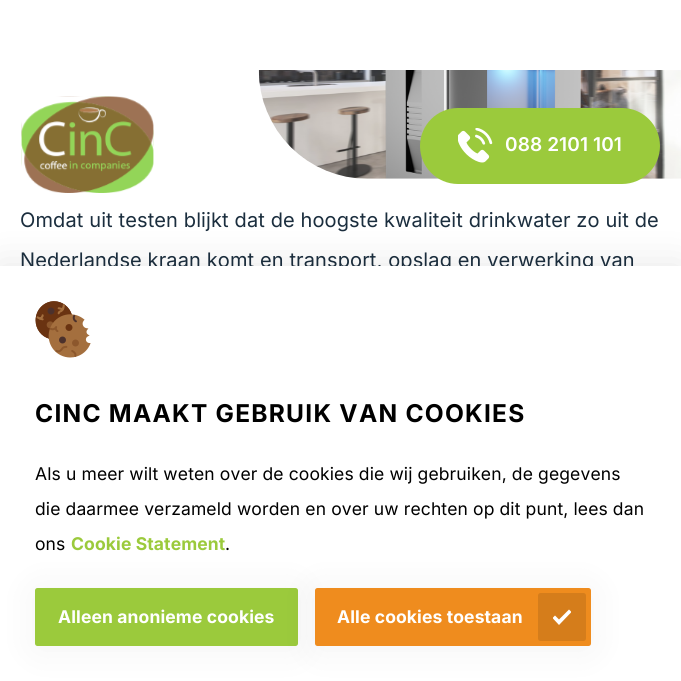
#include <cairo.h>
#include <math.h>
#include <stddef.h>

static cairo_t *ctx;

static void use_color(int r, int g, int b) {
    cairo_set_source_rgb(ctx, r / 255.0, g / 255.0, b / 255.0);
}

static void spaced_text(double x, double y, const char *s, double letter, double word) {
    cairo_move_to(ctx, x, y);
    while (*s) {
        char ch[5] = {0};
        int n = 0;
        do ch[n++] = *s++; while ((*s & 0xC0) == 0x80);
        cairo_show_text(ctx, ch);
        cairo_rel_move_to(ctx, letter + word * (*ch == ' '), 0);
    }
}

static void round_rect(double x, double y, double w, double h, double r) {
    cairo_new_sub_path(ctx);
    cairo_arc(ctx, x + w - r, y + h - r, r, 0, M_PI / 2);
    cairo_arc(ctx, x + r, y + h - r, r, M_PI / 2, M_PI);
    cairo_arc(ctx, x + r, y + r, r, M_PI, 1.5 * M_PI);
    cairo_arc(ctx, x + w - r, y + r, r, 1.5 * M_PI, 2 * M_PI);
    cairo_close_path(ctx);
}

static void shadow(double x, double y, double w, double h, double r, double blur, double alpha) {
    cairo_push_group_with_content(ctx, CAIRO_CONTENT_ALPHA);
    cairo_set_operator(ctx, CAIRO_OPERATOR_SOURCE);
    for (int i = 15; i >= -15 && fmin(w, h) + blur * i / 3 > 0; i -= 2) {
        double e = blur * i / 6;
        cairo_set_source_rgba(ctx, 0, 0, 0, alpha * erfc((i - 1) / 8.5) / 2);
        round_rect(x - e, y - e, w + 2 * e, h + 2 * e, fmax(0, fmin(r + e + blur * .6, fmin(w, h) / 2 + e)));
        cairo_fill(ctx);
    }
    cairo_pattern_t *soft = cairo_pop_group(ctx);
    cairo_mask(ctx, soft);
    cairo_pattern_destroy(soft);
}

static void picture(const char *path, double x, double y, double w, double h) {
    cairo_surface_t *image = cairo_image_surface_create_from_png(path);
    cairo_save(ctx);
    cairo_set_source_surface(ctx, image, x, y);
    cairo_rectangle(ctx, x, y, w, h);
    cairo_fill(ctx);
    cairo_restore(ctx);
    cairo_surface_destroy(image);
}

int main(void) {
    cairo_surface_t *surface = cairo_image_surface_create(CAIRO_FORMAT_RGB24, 681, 681);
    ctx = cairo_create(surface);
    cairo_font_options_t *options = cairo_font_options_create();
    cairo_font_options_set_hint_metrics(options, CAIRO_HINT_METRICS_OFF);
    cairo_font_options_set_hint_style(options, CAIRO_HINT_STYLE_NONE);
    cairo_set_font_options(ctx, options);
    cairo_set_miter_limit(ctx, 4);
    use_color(255, 255, 255);
    cairo_paint(ctx);
    picture("img1.png", 21, 96, 133, 97);
    picture("img3.png", 258, 70, 423, 109);
    use_color(155, 202, 60);
    round_rect(420, 108, 240, 76, 38);
    cairo_fill(ctx);
    picture("img2.png", 458, 128, 35, 35);
    cairo_select_font_face(ctx, "Inter SemiBold", CAIRO_FONT_SLANT_NORMAL, CAIRO_FONT_WEIGHT_NORMAL);
    cairo_set_font_size(ctx, 19);
    use_color(255, 255, 255);
    spaced_text(505, 151, "088 2101 101", 0.12, 0);
    cairo_select_font_face(ctx, "Inter", CAIRO_FONT_SLANT_NORMAL, CAIRO_FONT_WEIGHT_NORMAL);
    cairo_set_font_size(ctx, 20);
    use_color(27, 46, 62);
    spaced_text(20, 227, "Omdat uit testen blijkt dat de hoogste kwaliteit drinkwater zo uit de", 0.12, 0);
    spaced_text(20, 267, "Nederlandse kraan komt en transport, opslag en verwerking van", 0.12, 0);
    use_color(0, 0, 0);
    shadow(0, 266, 681, 415, 0, 19, 0.1);
    use_color(255, 255, 255);
    cairo_rectangle(ctx, 0, 266, 681, 415);
    cairo_fill(ctx);
    picture("img4.png", 35, 301, 56, 57);
    cairo_select_font_face(ctx, "Inter", CAIRO_FONT_SLANT_NORMAL, CAIRO_FONT_WEIGHT_BOLD);
    cairo_set_font_size(ctx, 24.5);
    use_color(0, 0, 0);
    spaced_text(35, 422, "CINC MAAKT GEBRUIK VAN COOKIES", 1.25, 0);
    cairo_select_font_face(ctx, "Inter", CAIRO_FONT_SLANT_NORMAL, CAIRO_FONT_WEIGHT_NORMAL);
    cairo_set_font_size(ctx, 17.5);
    spaced_text(35, 480, "Als u meer wilt weten over de cookies die wij gebruiken, de gegevens", 0.12, 0);
    spaced_text(35, 515, "die daarmee verzameld worden en over uw rechten op dit punt, lees dan", 0.12, 0);
    spaced_text(35, 550, "ons", 0.12, 0);
    cairo_select_font_face(ctx, "Inter", CAIRO_FONT_SLANT_NORMAL, CAIRO_FONT_WEIGHT_BOLD);
    use_color(155, 202, 60);
    spaced_text(71, 550, "Cookie Statement", 0.12, 0);
    cairo_select_font_face(ctx, "Inter", CAIRO_FONT_SLANT_NORMAL, CAIRO_FONT_WEIGHT_NORMAL);
    use_color(0, 0, 0);
    spaced_text(225, 550, ".", 0.12, 0);
    use_color(0, 0, 0);
    shadow(35, 590, 263, 59, 2.5, 19, 0.05);
    use_color(155, 202, 60);
    round_rect(35, 588, 263, 58, 2.5);
    cairo_fill(ctx);
    cairo_select_font_face(ctx, "Inter", CAIRO_FONT_SLANT_NORMAL, CAIRO_FONT_WEIGHT_BOLD);
    use_color(255, 255, 255);
    spaced_text(58, 623, "Alleen anonieme cookies", 0.12, 0);
    use_color(0, 0, 0);
    shadow(315, 590, 276, 59, 2.5, 19, 0.05);
    use_color(239, 140, 30);
    round_rect(315, 588, 276, 58, 2.5);
    cairo_fill(ctx);
    use_color(255, 255, 255);
    spaced_text(337, 623, "Alle cookies toestaan", 0.12, 0);
    use_color(213, 125, 27);
    round_rect(538, 593, 48, 48, 2.5);
    cairo_fill(ctx);
    cairo_save(ctx);
    cairo_rectangle(ctx, 553, 608, 18, 18);
    cairo_clip(ctx);
    use_color(255, 255, 255);
    cairo_new_path(ctx);
    cairo_move_to(ctx, 569, 609.5);
    cairo_line_to(ctx, 559, 619.5);
    cairo_line_to(ctx, 555, 615.5);
    cairo_line_to(ctx, 552.5, 618);
    cairo_line_to(ctx, 559, 625);
    cairo_line_to(ctx, 571.5, 612);
    cairo_close_path(ctx);
    cairo_fill(ctx);
    cairo_restore(ctx);
    cairo_surface_write_to_png(surface, "result.png");
    cairo_font_options_destroy(options);
    cairo_destroy(ctx);
    cairo_surface_destroy(surface);
    return 0;
}
